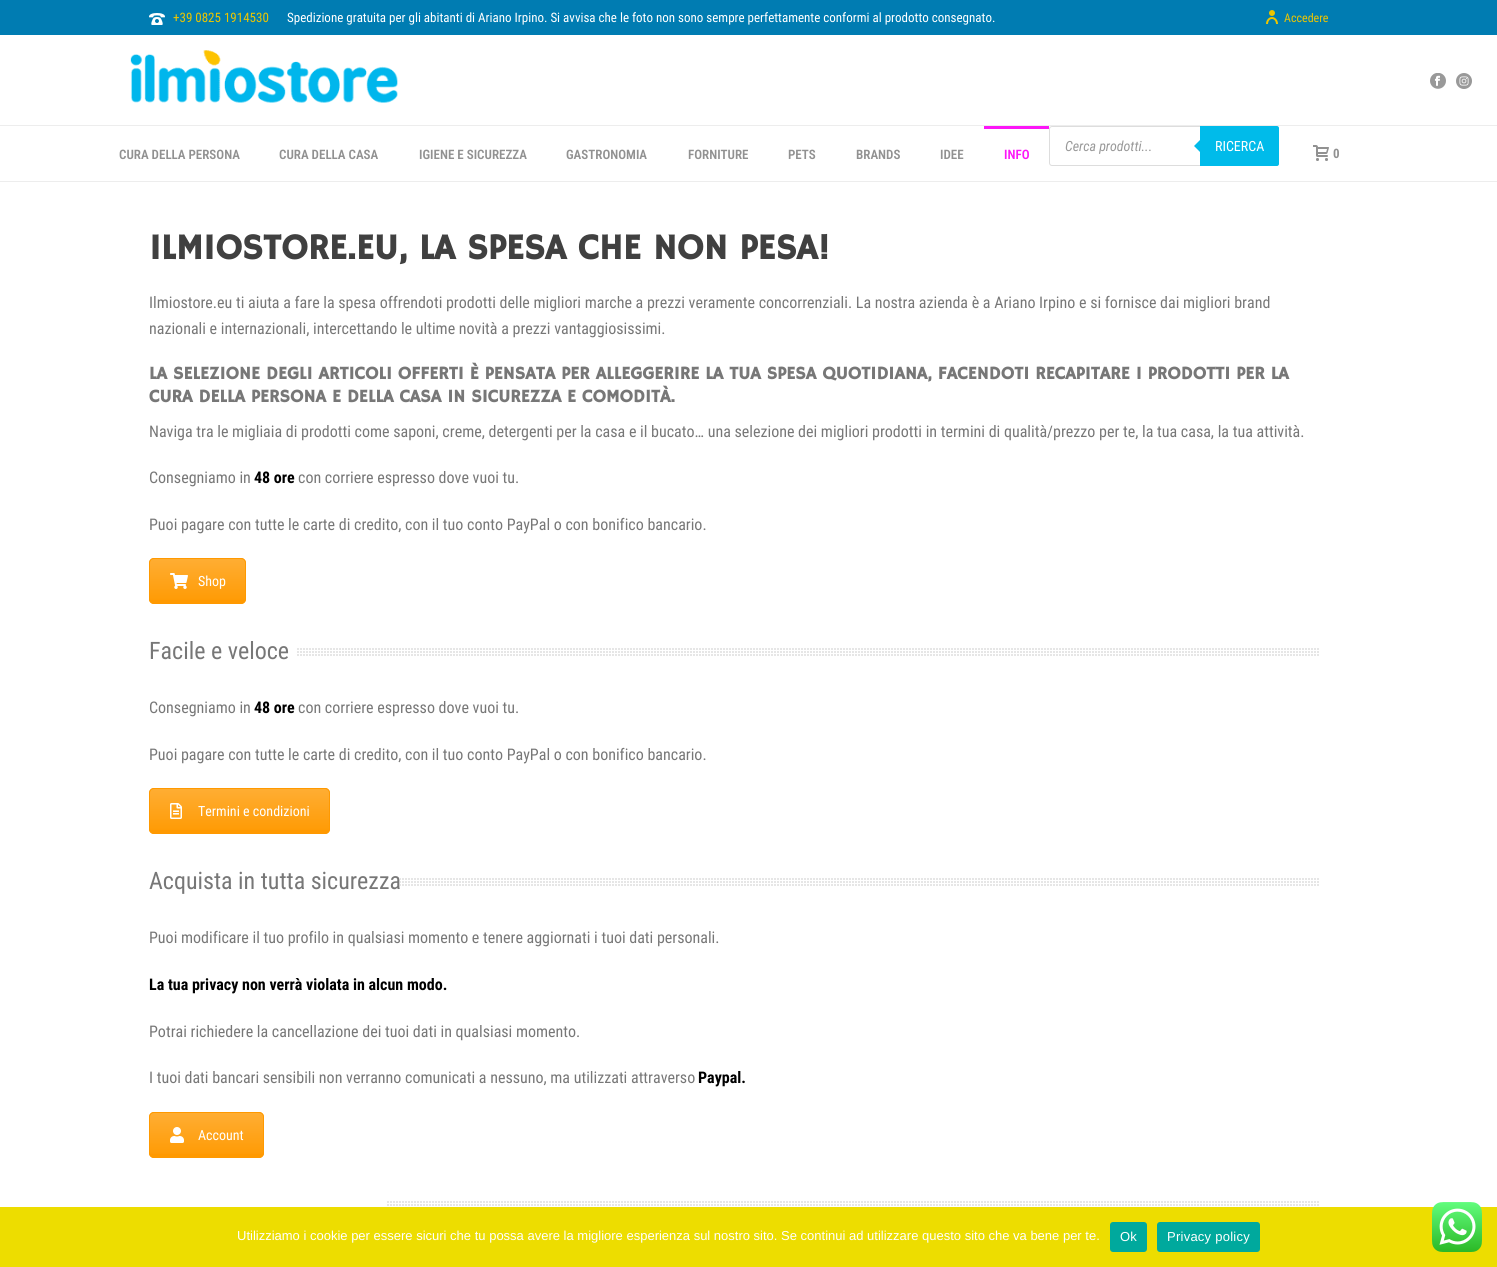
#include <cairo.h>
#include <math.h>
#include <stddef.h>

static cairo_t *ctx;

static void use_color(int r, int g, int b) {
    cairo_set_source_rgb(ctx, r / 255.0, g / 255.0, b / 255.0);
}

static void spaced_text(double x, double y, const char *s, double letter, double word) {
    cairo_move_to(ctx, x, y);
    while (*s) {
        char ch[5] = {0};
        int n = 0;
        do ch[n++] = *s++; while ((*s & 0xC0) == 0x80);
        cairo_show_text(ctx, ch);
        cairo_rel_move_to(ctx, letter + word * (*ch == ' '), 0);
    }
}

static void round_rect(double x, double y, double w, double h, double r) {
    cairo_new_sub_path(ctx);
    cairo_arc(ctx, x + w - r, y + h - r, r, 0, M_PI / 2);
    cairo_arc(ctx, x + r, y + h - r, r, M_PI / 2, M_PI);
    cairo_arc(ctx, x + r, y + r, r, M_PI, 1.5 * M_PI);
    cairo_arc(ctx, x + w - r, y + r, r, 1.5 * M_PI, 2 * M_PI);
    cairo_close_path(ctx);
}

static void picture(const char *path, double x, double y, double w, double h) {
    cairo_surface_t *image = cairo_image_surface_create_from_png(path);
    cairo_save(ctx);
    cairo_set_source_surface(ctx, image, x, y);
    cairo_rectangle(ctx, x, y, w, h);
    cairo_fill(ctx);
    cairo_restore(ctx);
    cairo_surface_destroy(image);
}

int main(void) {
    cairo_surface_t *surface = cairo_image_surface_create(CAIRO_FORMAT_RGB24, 1497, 1267);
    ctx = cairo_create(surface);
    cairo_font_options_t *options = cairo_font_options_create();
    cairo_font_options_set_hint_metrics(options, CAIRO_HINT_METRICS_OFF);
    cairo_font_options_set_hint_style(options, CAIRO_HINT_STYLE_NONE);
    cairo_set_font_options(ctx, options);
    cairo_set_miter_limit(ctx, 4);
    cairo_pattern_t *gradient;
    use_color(255, 255, 255);
    cairo_paint(ctx);
    use_color(0, 124, 178);
    cairo_rectangle(ctx, 0, 0, 1497, 35);
    cairo_fill(ctx);
    picture("img1.png", 149, 13, 16, 12);
    cairo_select_font_face(ctx, "Roboto Condensed", CAIRO_FONT_SLANT_NORMAL, CAIRO_FONT_WEIGHT_NORMAL);
    cairo_set_font_size(ctx, 13);
    use_color(237, 197, 0);
    cairo_move_to(ctx, 173, 22);
    cairo_show_text(ctx, "+39 0825 1914530");
    use_color(255, 255, 255);
    cairo_move_to(ctx, 287, 22);
    cairo_show_text(ctx, "Spedizione gratuita per gli abitanti di Ariano Irpino. Si avvisa che le foto non sono sempre perfettamente conformi al prodotto consegnato.");
    picture("img2.png", 1266, 10, 12, 14);
    cairo_set_font_size(ctx, 12);
    use_color(237, 197, 0);
    cairo_move_to(ctx, 1284, 22);
    cairo_show_text(ctx, "Accedere");
    use_color(237, 237, 237);
    cairo_rectangle(ctx, 0, 181, 1497, 1);
    cairo_fill(ctx);
    picture("img3.png", 130, 50, 268, 53);
    picture("img4.png", 1430, 73, 16, 16);
    picture("img5.png", 1456, 73, 16, 16);
    cairo_rectangle(ctx, 0, 125, 1497, 1);
    cairo_fill(ctx);
    cairo_select_font_face(ctx, "Roboto Condensed SemiBold", CAIRO_FONT_SLANT_NORMAL, CAIRO_FONT_WEIGHT_NORMAL);
    cairo_set_font_size(ctx, 13);
    use_color(145, 145, 145);
    cairo_move_to(ctx, 119, 159);
    cairo_show_text(ctx, "CURA DELLA PERSONA");
    cairo_move_to(ctx, 279, 159);
    cairo_show_text(ctx, "CURA DELLA CASA");
    cairo_move_to(ctx, 419, 159);
    cairo_show_text(ctx, "IGIENE E SICUREZZA");
    cairo_move_to(ctx, 566, 159);
    cairo_show_text(ctx, "GASTRONOMIA");
    cairo_move_to(ctx, 688, 159);
    cairo_show_text(ctx, "FORNITURE");
    cairo_move_to(ctx, 788, 159);
    cairo_show_text(ctx, "PETS");
    cairo_move_to(ctx, 856, 159);
    cairo_show_text(ctx, "BRANDS");
    cairo_move_to(ctx, 940, 159);
    cairo_show_text(ctx, "IDEE");
    use_color(252, 22, 248);
    cairo_rectangle(ctx, 984, 126, 65, 3);
    cairo_fill(ctx);
    cairo_move_to(ctx, 1004, 159);
    cairo_show_text(ctx, "INFO");
    round_rect(1049.5, 126.5, 229, 39, 2.5);
    use_color(221, 221, 221);
    cairo_set_line_width(ctx, 1);
    cairo_stroke(ctx);
    cairo_select_font_face(ctx, "Roboto Condensed", CAIRO_FONT_SLANT_ITALIC, CAIRO_FONT_WEIGHT_NORMAL);
    cairo_set_font_size(ctx, 14);
    use_color(153, 153, 153);
    cairo_move_to(ctx, 1065, 151);
    cairo_show_text(ctx, "Cerca prodotti...");
    use_color(0, 187, 234);
    cairo_new_path(ctx);
    cairo_move_to(ctx, 1200, 126);
    cairo_line_to(ctx, 1277, 126);
    cairo_curve_to(ctx, 1278, 126, 1279, 127, 1279, 128);
    cairo_line_to(ctx, 1279, 164);
    cairo_curve_to(ctx, 1279, 165, 1278, 166, 1277, 166);
    cairo_line_to(ctx, 1200, 166);
    cairo_close_path(ctx);
    cairo_fill(ctx);
    cairo_new_path(ctx);
    cairo_move_to(ctx, 1202, 138);
    cairo_line_to(ctx, 1202, 154);
    cairo_line_to(ctx, 1194, 146);
    cairo_close_path(ctx);
    cairo_fill(ctx);
    cairo_select_font_face(ctx, "Roboto Condensed", CAIRO_FONT_SLANT_NORMAL, CAIRO_FONT_WEIGHT_NORMAL);
    use_color(255, 255, 255);
    cairo_move_to(ctx, 1215, 151);
    cairo_show_text(ctx, "RICERCA");
    picture("img6.png", 1313, 145, 16, 16);
    cairo_select_font_face(ctx, "Roboto Condensed", CAIRO_FONT_SLANT_NORMAL, CAIRO_FONT_WEIGHT_BOLD);
    cairo_set_font_size(ctx, 13);
    use_color(145, 145, 145);
    cairo_move_to(ctx, 1333, 158);
    cairo_show_text(ctx, "0");
    cairo_select_font_face(ctx, "Hammersmith One", CAIRO_FONT_SLANT_NORMAL, CAIRO_FONT_WEIGHT_BOLD);
    cairo_set_font_size(ctx, 36);
    use_color(64, 64, 64);
    cairo_move_to(ctx, 149, 259);
    cairo_show_text(ctx, "ILMIOSTORE.EU, LA SPESA CHE NON PESA!");
    cairo_select_font_face(ctx, "Roboto Condensed", CAIRO_FONT_SLANT_NORMAL, CAIRO_FONT_WEIGHT_NORMAL);
    cairo_set_font_size(ctx, 16);
    use_color(119, 119, 119);
    cairo_move_to(ctx, 149, 308);
    cairo_show_text(ctx, "Ilmiostore.eu ti aiuta a fare la spesa offrendoti prodotti delle migliori marche a prezzi veramente concorrenziali. La nostra azienda è a Ariano Irpino e si fornisce dai migliori brand");
    cairo_move_to(ctx, 149, 334);
    cairo_show_text(ctx, "nazionali e internazionali, intercettando le ultime novità a prezzi vantaggiosissimi.");
    cairo_select_font_face(ctx, "Hammersmith One", CAIRO_FONT_SLANT_NORMAL, CAIRO_FONT_WEIGHT_BOLD);
    cairo_set_font_size(ctx, 18);
    cairo_move_to(ctx, 149, 379);
    cairo_show_text(ctx, "LA SELEZIONE DEGLI ARTICOLI OFFERTI È PENSATA PER ALLEGGERIRE LA TUA SPESA QUOTIDIANA, FACENDOTI RECAPITARE I PRODOTTI PER LA");
    cairo_move_to(ctx, 149, 402);
    cairo_show_text(ctx, "CURA DELLA PERSONA E DELLA CASA IN SICUREZZA E COMODITÀ.");
    cairo_select_font_face(ctx, "Roboto Condensed", CAIRO_FONT_SLANT_NORMAL, CAIRO_FONT_WEIGHT_NORMAL);
    cairo_set_font_size(ctx, 16);
    cairo_move_to(ctx, 149, 437);
    cairo_show_text(ctx, "Naviga tra le migliaia di prodotti come saponi, creme, detergenti per la casa e il bucato… una selezione dei migliori prodotti in termini di qualità/prezzo per te, la tua casa, la tua attività.");
    cairo_move_to(ctx, 149, 483);
    cairo_show_text(ctx, "Consegniamo in");
    cairo_select_font_face(ctx, "Roboto Condensed", CAIRO_FONT_SLANT_NORMAL, CAIRO_FONT_WEIGHT_BOLD);
    use_color(0, 0, 0);
    cairo_move_to(ctx, 254, 483);
    cairo_show_text(ctx, "48 ore");
    cairo_select_font_face(ctx, "Roboto Condensed", CAIRO_FONT_SLANT_NORMAL, CAIRO_FONT_WEIGHT_NORMAL);
    use_color(119, 119, 119);
    cairo_move_to(ctx, 298, 483);
    cairo_show_text(ctx, "con corriere espresso dove vuoi tu.");
    cairo_move_to(ctx, 149, 530);
    cairo_show_text(ctx, "Puoi pagare con tutte le carte di credito, con il tuo conto PayPal o con bonifico bancario.");
    use_color(255, 153, 0);
    round_rect(149, 558, 97, 46, 5);
    cairo_fill(ctx);
    cairo_save(ctx);
    round_rect(149, 558, 97, 46, 5);
    cairo_clip(ctx);
    gradient = cairo_pattern_create_linear(198, 559, 198, 603);
    cairo_pattern_add_color_stop_rgba(gradient, 0, 1, 1, 1, 0.2);
    cairo_pattern_add_color_stop_rgba(gradient, 1, 1, 1, 1, 0.01);
    cairo_set_source(ctx, gradient);
    cairo_pattern_destroy(gradient);
    cairo_rectangle(ctx, 149, 559, 97, 41);
    cairo_fill(ctx);
    cairo_restore(ctx);
    round_rect(149.5, 558.5, 96, 45, 4.5);
    cairo_stroke(ctx);
    picture("img7.png", 170, 573, 18, 16);
    cairo_set_font_size(ctx, 14);
    use_color(255, 255, 255);
    cairo_move_to(ctx, 198, 586);
    cairo_show_text(ctx, "Shop");
    picture("img8.png", 297, 648, 1022, 8);
    cairo_set_font_size(ctx, 24);
    use_color(119, 119, 119);
    cairo_move_to(ctx, 149, 659);
    cairo_show_text(ctx, "Facile e veloce");
    cairo_set_font_size(ctx, 16);
    cairo_move_to(ctx, 149, 713);
    cairo_show_text(ctx, "Consegniamo in");
    cairo_select_font_face(ctx, "Roboto Condensed", CAIRO_FONT_SLANT_NORMAL, CAIRO_FONT_WEIGHT_BOLD);
    use_color(0, 0, 0);
    cairo_move_to(ctx, 254, 713);
    cairo_show_text(ctx, "48 ore");
    cairo_select_font_face(ctx, "Roboto Condensed", CAIRO_FONT_SLANT_NORMAL, CAIRO_FONT_WEIGHT_NORMAL);
    use_color(119, 119, 119);
    cairo_move_to(ctx, 298, 713);
    cairo_show_text(ctx, "con corriere espresso dove vuoi tu.");
    cairo_move_to(ctx, 149, 760);
    cairo_show_text(ctx, "Puoi pagare con tutte le carte di credito, con il tuo conto PayPal o con bonifico bancario.");
    use_color(255, 153, 0);
    round_rect(149, 788, 181, 46, 5);
    cairo_fill(ctx);
    cairo_save(ctx);
    round_rect(149, 788, 181, 46, 5);
    cairo_clip(ctx);
    gradient = cairo_pattern_create_linear(240, 789, 240, 833);
    cairo_pattern_add_color_stop_rgba(gradient, 0, 1, 1, 1, 0.2);
    cairo_pattern_add_color_stop_rgba(gradient, 1, 1, 1, 1, 0.01);
    cairo_set_source(ctx, gradient);
    cairo_pattern_destroy(gradient);
    cairo_rectangle(ctx, 149, 789, 181, 41);
    cairo_fill(ctx);
    cairo_restore(ctx);
    round_rect(149.5, 788.5, 180, 45, 4.5);
    cairo_stroke(ctx);
    picture("img9.png", 170, 803, 12, 16);
    cairo_set_font_size(ctx, 14);
    use_color(255, 255, 255);
    cairo_move_to(ctx, 198, 816);
    cairo_show_text(ctx, "Termini e condizioni");
    picture("img10.png", 400, 878, 919, 8);
    cairo_set_font_size(ctx, 24);
    use_color(119, 119, 119);
    cairo_move_to(ctx, 149, 889);
    cairo_show_text(ctx, "Acquista in tutta sicurezza");
    cairo_set_font_size(ctx, 16);
    cairo_move_to(ctx, 149, 943);
    cairo_show_text(ctx, "Puoi modificare il tuo profilo in qualsiasi momento e tenere aggiornati i tuoi dati personali.");
    cairo_select_font_face(ctx, "Roboto Condensed", CAIRO_FONT_SLANT_NORMAL, CAIRO_FONT_WEIGHT_BOLD);
    use_color(0, 0, 0);
    cairo_move_to(ctx, 149, 990);
    cairo_show_text(ctx, "La tua privacy non verrà violata in alcun modo.");
    cairo_select_font_face(ctx, "Roboto Condensed", CAIRO_FONT_SLANT_NORMAL, CAIRO_FONT_WEIGHT_NORMAL);
    use_color(119, 119, 119);
    cairo_move_to(ctx, 149, 1037);
    cairo_show_text(ctx, "Potrai richiedere la cancellazione dei tuoi dati in qualsiasi momento.");
    cairo_move_to(ctx, 149, 1083);
    cairo_show_text(ctx, "I tuoi dati bancari sensibili non verranno comunicati a nessuno, ma utilizzati attraverso");
    cairo_select_font_face(ctx, "Roboto Condensed", CAIRO_FONT_SLANT_NORMAL, CAIRO_FONT_WEIGHT_BOLD);
    use_color(0, 0, 0);
    cairo_move_to(ctx, 698, 1083);
    cairo_show_text(ctx, "Paypal.");
    use_color(255, 153, 0);
    round_rect(149, 1112, 115, 46, 5);
    cairo_fill(ctx);
    cairo_save(ctx);
    round_rect(149, 1112, 115, 46, 5);
    cairo_clip(ctx);
    gradient = cairo_pattern_create_linear(207, 1113, 207, 1157);
    cairo_pattern_add_color_stop_rgba(gradient, 0, 1, 1, 1, 0.2);
    cairo_pattern_add_color_stop_rgba(gradient, 1, 1, 1, 1, 0.01);
    cairo_set_source(ctx, gradient);
    cairo_pattern_destroy(gradient);
    cairo_rectangle(ctx, 149, 1113, 115, 41);
    cairo_fill(ctx);
    cairo_restore(ctx);
    round_rect(149.5, 1112.5, 114, 45, 4.5);
    cairo_stroke(ctx);
    picture("img11.png", 170, 1127, 14, 16);
    cairo_select_font_face(ctx, "Roboto Condensed", CAIRO_FONT_SLANT_NORMAL, CAIRO_FONT_WEIGHT_NORMAL);
    cairo_set_font_size(ctx, 14);
    use_color(255, 255, 255);
    cairo_move_to(ctx, 198, 1140);
    cairo_show_text(ctx, "Account");
    picture("img12.png", 387, 1201, 932, 5);
    use_color(237, 221, 0);
    cairo_rectangle(ctx, 0, 1207, 1497, 60);
    cairo_fill(ctx);
    cairo_select_font_face(ctx, "Liberation Sans", CAIRO_FONT_SLANT_NORMAL, CAIRO_FONT_WEIGHT_NORMAL);
    cairo_set_font_size(ctx, 13);
    use_color(255, 255, 255);
    cairo_move_to(ctx, 237, 1240);
    cairo_show_text(ctx, "Utilizziamo i cookie per essere sicuri che tu possa avere la migliore esperienza sul nostro sito. Se continui ad utilizzare questo sito che va bene per te.");
    use_color(0, 169, 157);
    round_rect(1110, 1222, 37, 30, 3);
    cairo_fill(ctx);
    use_color(255, 255, 255);
    spaced_text(1120, 1241, "Ok", 0.25, 0);
    use_color(0, 169, 157);
    round_rect(1157, 1222, 103, 30, 3);
    cairo_fill(ctx);
    use_color(255, 255, 255);
    spaced_text(1167, 1241, "Privacy policy", 0.25, 0);
    picture("img13.png", 1432, 1202, 50, 50);
    cairo_surface_write_to_png(surface, "result.png");
    cairo_font_options_destroy(options);
    cairo_destroy(ctx);
    cairo_surface_destroy(surface);
    return 0;
}
